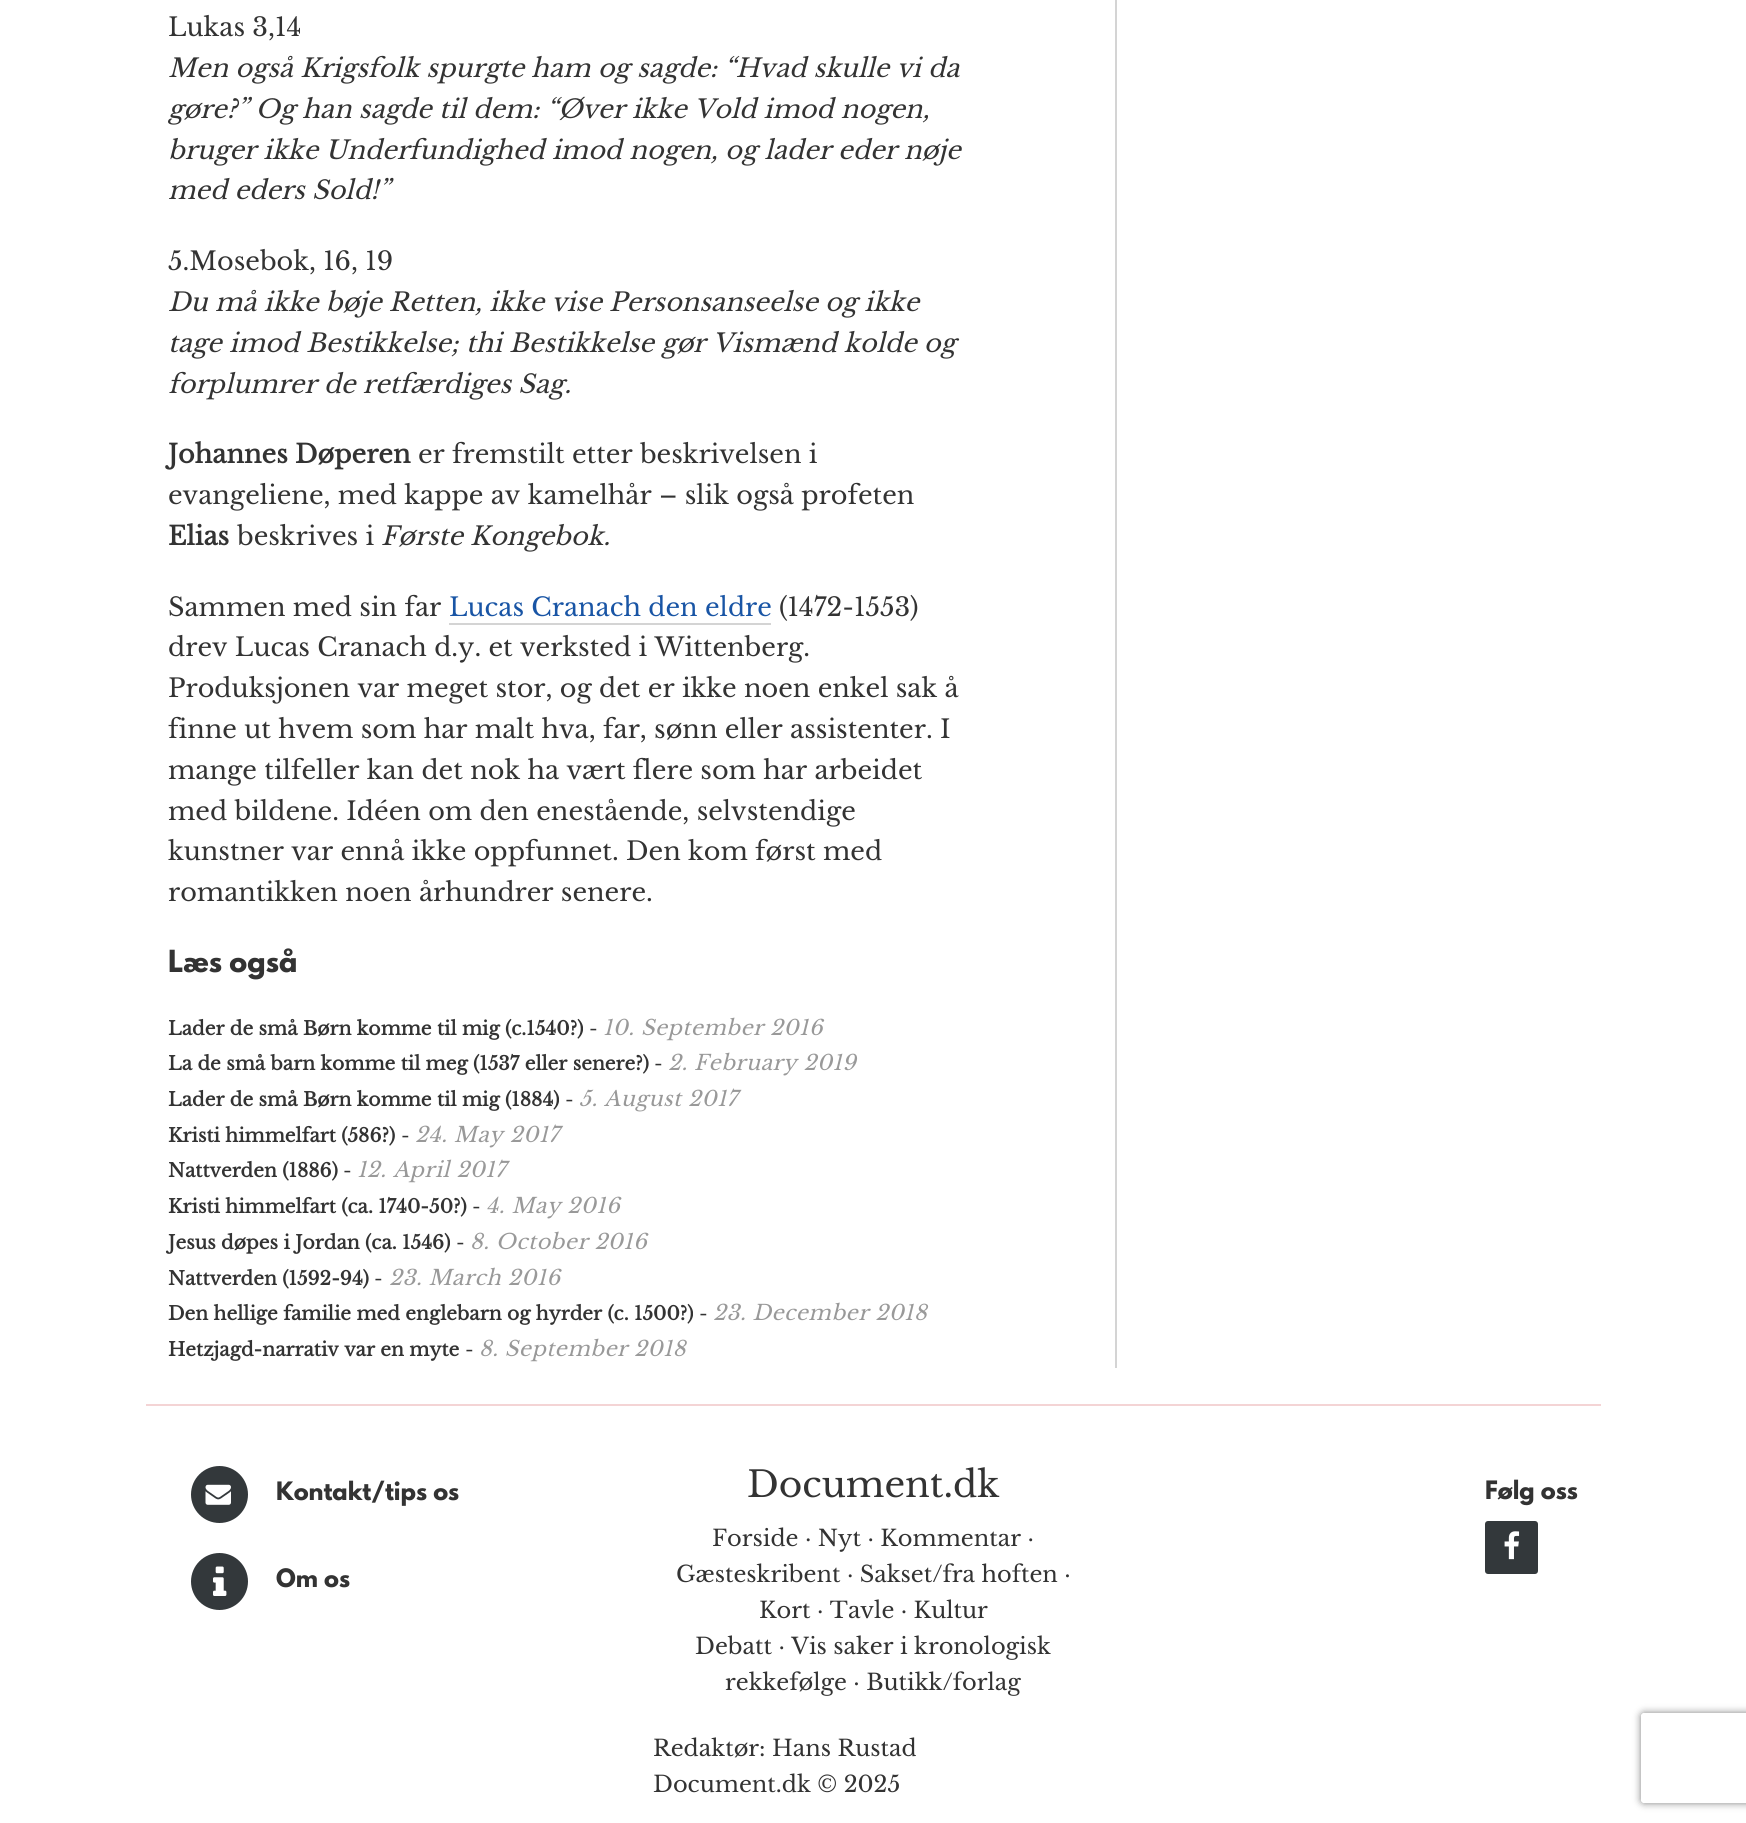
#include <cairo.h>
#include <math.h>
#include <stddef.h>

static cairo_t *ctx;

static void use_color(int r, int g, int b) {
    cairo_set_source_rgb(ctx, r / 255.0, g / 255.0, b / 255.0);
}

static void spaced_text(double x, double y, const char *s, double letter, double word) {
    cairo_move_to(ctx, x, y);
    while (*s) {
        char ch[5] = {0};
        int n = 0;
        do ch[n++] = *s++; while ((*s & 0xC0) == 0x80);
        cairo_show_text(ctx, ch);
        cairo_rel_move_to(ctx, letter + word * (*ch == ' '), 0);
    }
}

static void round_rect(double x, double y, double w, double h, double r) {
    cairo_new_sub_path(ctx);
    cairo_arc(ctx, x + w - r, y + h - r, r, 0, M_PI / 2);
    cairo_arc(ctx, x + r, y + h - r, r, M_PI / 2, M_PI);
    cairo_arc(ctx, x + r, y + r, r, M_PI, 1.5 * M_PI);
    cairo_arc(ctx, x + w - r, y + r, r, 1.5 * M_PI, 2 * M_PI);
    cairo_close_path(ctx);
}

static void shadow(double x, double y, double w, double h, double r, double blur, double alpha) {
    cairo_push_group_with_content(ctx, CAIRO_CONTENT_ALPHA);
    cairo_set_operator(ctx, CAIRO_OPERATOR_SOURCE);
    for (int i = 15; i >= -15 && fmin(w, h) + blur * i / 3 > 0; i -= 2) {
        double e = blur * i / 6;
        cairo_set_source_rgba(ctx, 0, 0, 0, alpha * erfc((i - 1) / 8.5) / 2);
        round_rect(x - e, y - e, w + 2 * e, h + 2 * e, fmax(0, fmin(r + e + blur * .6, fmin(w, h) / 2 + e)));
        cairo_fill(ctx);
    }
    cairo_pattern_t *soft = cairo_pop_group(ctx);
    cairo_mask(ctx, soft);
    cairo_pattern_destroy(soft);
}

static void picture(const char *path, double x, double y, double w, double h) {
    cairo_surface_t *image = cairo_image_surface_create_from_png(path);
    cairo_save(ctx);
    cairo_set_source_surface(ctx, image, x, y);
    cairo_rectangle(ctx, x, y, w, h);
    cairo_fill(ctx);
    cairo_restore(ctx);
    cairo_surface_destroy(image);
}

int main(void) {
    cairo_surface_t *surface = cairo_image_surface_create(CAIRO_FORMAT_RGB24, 1746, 1823);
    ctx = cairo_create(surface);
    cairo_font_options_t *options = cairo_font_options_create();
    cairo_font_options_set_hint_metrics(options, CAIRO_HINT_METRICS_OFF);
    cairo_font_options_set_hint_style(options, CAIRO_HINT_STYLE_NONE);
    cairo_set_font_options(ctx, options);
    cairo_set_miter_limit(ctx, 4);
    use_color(255, 255, 255);
    cairo_paint(ctx);
    use_color(212, 212, 212);
    cairo_rectangle(ctx, 1115, 0, 2, 1368);
    cairo_fill(ctx);
    cairo_select_font_face(ctx, "Libre Baskerville", CAIRO_FONT_SLANT_NORMAL, CAIRO_FONT_WEIGHT_NORMAL);
    cairo_set_font_size(ctx, 25.5);
    use_color(51, 51, 51);
    cairo_move_to(ctx, 168, 36);
    cairo_show_text(ctx, "Lukas 3,14");
    cairo_select_font_face(ctx, "Libre Baskerville", CAIRO_FONT_SLANT_ITALIC, CAIRO_FONT_WEIGHT_NORMAL);
    cairo_move_to(ctx, 168, 77);
    cairo_show_text(ctx, "Men også Krigsfolk spurgte ham og sagde: “Hvad skulle vi da");
    cairo_move_to(ctx, 168, 118);
    cairo_show_text(ctx, "gøre?” Og han sagde til dem: “Øver ikke Vold imod nogen,");
    cairo_move_to(ctx, 168, 159);
    cairo_show_text(ctx, "bruger ikke Underfundighed imod nogen, og lader eder nøje");
    cairo_move_to(ctx, 168, 199);
    cairo_show_text(ctx, "med eders Sold!”");
    cairo_select_font_face(ctx, "Libre Baskerville", CAIRO_FONT_SLANT_NORMAL, CAIRO_FONT_WEIGHT_NORMAL);
    cairo_move_to(ctx, 168, 270);
    cairo_show_text(ctx, "5.Mosebok, 16, 19");
    cairo_select_font_face(ctx, "Libre Baskerville", CAIRO_FONT_SLANT_ITALIC, CAIRO_FONT_WEIGHT_NORMAL);
    cairo_move_to(ctx, 168, 311);
    cairo_show_text(ctx, "Du må ikke bøje Retten, ikke vise Personsanseelse og ikke");
    cairo_move_to(ctx, 168, 352);
    cairo_show_text(ctx, "tage imod Bestikkelse; thi Bestikkelse gør Vismænd kolde og");
    cairo_move_to(ctx, 168, 393);
    cairo_show_text(ctx, "forplumrer de retfærdiges Sag.");
    cairo_select_font_face(ctx, "Libre Baskerville", CAIRO_FONT_SLANT_NORMAL, CAIRO_FONT_WEIGHT_BOLD);
    cairo_move_to(ctx, 168, 463);
    cairo_show_text(ctx, "Johannes Døperen");
    cairo_select_font_face(ctx, "Libre Baskerville", CAIRO_FONT_SLANT_NORMAL, CAIRO_FONT_WEIGHT_NORMAL);
    cairo_move_to(ctx, 418, 463);
    cairo_show_text(ctx, "er fremstilt etter beskrivelsen i");
    cairo_move_to(ctx, 168, 504);
    cairo_show_text(ctx, "evangeliene, med kappe av kamelhår – slik også profeten");
    cairo_select_font_face(ctx, "Libre Baskerville", CAIRO_FONT_SLANT_NORMAL, CAIRO_FONT_WEIGHT_BOLD);
    cairo_move_to(ctx, 168, 545);
    cairo_show_text(ctx, "Elias");
    cairo_select_font_face(ctx, "Libre Baskerville", CAIRO_FONT_SLANT_NORMAL, CAIRO_FONT_WEIGHT_NORMAL);
    cairo_move_to(ctx, 237, 545);
    cairo_show_text(ctx, "beskrives i");
    cairo_select_font_face(ctx, "Libre Baskerville", CAIRO_FONT_SLANT_ITALIC, CAIRO_FONT_WEIGHT_NORMAL);
    cairo_move_to(ctx, 381, 545);
    cairo_show_text(ctx, "Første Kongebok.");
    cairo_select_font_face(ctx, "Libre Baskerville", CAIRO_FONT_SLANT_NORMAL, CAIRO_FONT_WEIGHT_NORMAL);
    cairo_move_to(ctx, 168, 616);
    cairo_show_text(ctx, "Sammen med sin far");
    use_color(25, 85, 165);
    cairo_move_to(ctx, 449, 616);
    cairo_show_text(ctx, "Lucas Cranach den eldre");
    use_color(212, 212, 212);
    cairo_rectangle(ctx, 449, 623, 322, 2);
    cairo_fill(ctx);
    use_color(51, 51, 51);
    cairo_move_to(ctx, 779, 616);
    cairo_show_text(ctx, "(1472-1553)");
    cairo_move_to(ctx, 168, 656);
    cairo_show_text(ctx, "drev Lucas Cranach d.y. et verksted i Wittenberg.");
    cairo_move_to(ctx, 168, 697);
    cairo_show_text(ctx, "Produksjonen var meget stor, og det er ikke noen enkel sak å");
    cairo_move_to(ctx, 168, 738);
    cairo_show_text(ctx, "finne ut hvem som har malt hva, far, sønn eller assistenter. I");
    cairo_move_to(ctx, 168, 779);
    cairo_show_text(ctx, "mange tilfeller kan det nok ha vært flere som har arbeidet");
    cairo_move_to(ctx, 168, 820);
    cairo_show_text(ctx, "med bildene. Idéen om den enestående, selvstendige");
    cairo_move_to(ctx, 168, 860);
    cairo_show_text(ctx, "kunstner var ennå ikke oppfunnet. Den kom først med");
    cairo_move_to(ctx, 168, 901);
    cairo_show_text(ctx, "romantikken noen århundrer senere.");
    cairo_select_font_face(ctx, "League Spartan", CAIRO_FONT_SLANT_NORMAL, CAIRO_FONT_WEIGHT_BOLD);
    cairo_set_font_size(ctx, 27);
    cairo_move_to(ctx, 168, 972);
    cairo_show_text(ctx, "Læs også");
    cairo_select_font_face(ctx, "Libre Baskerville", CAIRO_FONT_SLANT_NORMAL, CAIRO_FONT_WEIGHT_BOLD);
    cairo_set_font_size(ctx, 18.75);
    cairo_move_to(ctx, 168, 1035);
    cairo_show_text(ctx, "Lader de små Børn komme til mig (c.1540?)");
    cairo_select_font_face(ctx, "Libre Baskerville", CAIRO_FONT_SLANT_NORMAL, CAIRO_FONT_WEIGHT_NORMAL);
    cairo_move_to(ctx, 589, 1035);
    cairo_show_text(ctx, "-");
    cairo_select_font_face(ctx, "Libre Baskerville", CAIRO_FONT_SLANT_ITALIC, CAIRO_FONT_WEIGHT_NORMAL);
    cairo_set_font_size(ctx, 21);
    use_color(153, 153, 153);
    spaced_text(603, 1035, "10. September 2016", 0.5, 0);
    cairo_select_font_face(ctx, "Libre Baskerville", CAIRO_FONT_SLANT_NORMAL, CAIRO_FONT_WEIGHT_BOLD);
    cairo_set_font_size(ctx, 18.75);
    use_color(51, 51, 51);
    cairo_move_to(ctx, 168, 1070);
    cairo_show_text(ctx, "La de små barn komme til meg (1537 eller senere?)");
    cairo_select_font_face(ctx, "Libre Baskerville", CAIRO_FONT_SLANT_NORMAL, CAIRO_FONT_WEIGHT_NORMAL);
    cairo_move_to(ctx, 654, 1070);
    cairo_show_text(ctx, "-");
    cairo_select_font_face(ctx, "Libre Baskerville", CAIRO_FONT_SLANT_ITALIC, CAIRO_FONT_WEIGHT_NORMAL);
    cairo_set_font_size(ctx, 21);
    use_color(153, 153, 153);
    spaced_text(668, 1070, "2. February 2019", 0.5, 0);
    cairo_select_font_face(ctx, "Libre Baskerville", CAIRO_FONT_SLANT_NORMAL, CAIRO_FONT_WEIGHT_BOLD);
    cairo_set_font_size(ctx, 18.75);
    use_color(51, 51, 51);
    cairo_move_to(ctx, 168, 1106);
    cairo_show_text(ctx, "Lader de små Børn komme til mig (1884)");
    cairo_select_font_face(ctx, "Libre Baskerville", CAIRO_FONT_SLANT_NORMAL, CAIRO_FONT_WEIGHT_NORMAL);
    cairo_move_to(ctx, 565, 1106);
    cairo_show_text(ctx, "-");
    cairo_select_font_face(ctx, "Libre Baskerville", CAIRO_FONT_SLANT_ITALIC, CAIRO_FONT_WEIGHT_NORMAL);
    cairo_set_font_size(ctx, 21);
    use_color(153, 153, 153);
    spaced_text(579, 1106, "5. August 2017", 0.5, 0);
    cairo_select_font_face(ctx, "Libre Baskerville", CAIRO_FONT_SLANT_NORMAL, CAIRO_FONT_WEIGHT_BOLD);
    cairo_set_font_size(ctx, 18.75);
    use_color(51, 51, 51);
    cairo_move_to(ctx, 168, 1142);
    cairo_show_text(ctx, "Kristi himmelfart (586?)");
    cairo_select_font_face(ctx, "Libre Baskerville", CAIRO_FONT_SLANT_NORMAL, CAIRO_FONT_WEIGHT_NORMAL);
    cairo_move_to(ctx, 401, 1142);
    cairo_show_text(ctx, "-");
    cairo_select_font_face(ctx, "Libre Baskerville", CAIRO_FONT_SLANT_ITALIC, CAIRO_FONT_WEIGHT_NORMAL);
    cairo_set_font_size(ctx, 21);
    use_color(153, 153, 153);
    spaced_text(415, 1142, "24. May 2017", 0.5, 0);
    cairo_select_font_face(ctx, "Libre Baskerville", CAIRO_FONT_SLANT_NORMAL, CAIRO_FONT_WEIGHT_BOLD);
    cairo_set_font_size(ctx, 18.75);
    use_color(51, 51, 51);
    cairo_move_to(ctx, 168, 1177);
    cairo_show_text(ctx, "Nattverden (1886)");
    cairo_select_font_face(ctx, "Libre Baskerville", CAIRO_FONT_SLANT_NORMAL, CAIRO_FONT_WEIGHT_NORMAL);
    cairo_move_to(ctx, 343, 1177);
    cairo_show_text(ctx, "-");
    cairo_select_font_face(ctx, "Libre Baskerville", CAIRO_FONT_SLANT_ITALIC, CAIRO_FONT_WEIGHT_NORMAL);
    cairo_set_font_size(ctx, 21);
    use_color(153, 153, 153);
    spaced_text(357, 1177, "12. April 2017", 0.5, 0);
    cairo_select_font_face(ctx, "Libre Baskerville", CAIRO_FONT_SLANT_NORMAL, CAIRO_FONT_WEIGHT_BOLD);
    cairo_set_font_size(ctx, 18.75);
    use_color(51, 51, 51);
    cairo_move_to(ctx, 168, 1213);
    cairo_show_text(ctx, "Kristi himmelfart (ca. 1740-50?)");
    cairo_select_font_face(ctx, "Libre Baskerville", CAIRO_FONT_SLANT_NORMAL, CAIRO_FONT_WEIGHT_NORMAL);
    cairo_move_to(ctx, 472, 1213);
    cairo_show_text(ctx, "-");
    cairo_select_font_face(ctx, "Libre Baskerville", CAIRO_FONT_SLANT_ITALIC, CAIRO_FONT_WEIGHT_NORMAL);
    cairo_set_font_size(ctx, 21);
    use_color(153, 153, 153);
    spaced_text(486, 1213, "4. May 2016", 0.5, 0);
    cairo_select_font_face(ctx, "Libre Baskerville", CAIRO_FONT_SLANT_NORMAL, CAIRO_FONT_WEIGHT_BOLD);
    cairo_set_font_size(ctx, 18.75);
    use_color(51, 51, 51);
    cairo_move_to(ctx, 168, 1249);
    cairo_show_text(ctx, "Jesus døpes i Jordan (ca. 1546)");
    cairo_select_font_face(ctx, "Libre Baskerville", CAIRO_FONT_SLANT_NORMAL, CAIRO_FONT_WEIGHT_NORMAL);
    cairo_move_to(ctx, 456, 1249);
    cairo_show_text(ctx, "-");
    cairo_select_font_face(ctx, "Libre Baskerville", CAIRO_FONT_SLANT_ITALIC, CAIRO_FONT_WEIGHT_NORMAL);
    cairo_set_font_size(ctx, 21);
    use_color(153, 153, 153);
    spaced_text(470, 1249, "8. October 2016", 0.5, 0);
    cairo_select_font_face(ctx, "Libre Baskerville", CAIRO_FONT_SLANT_NORMAL, CAIRO_FONT_WEIGHT_BOLD);
    cairo_set_font_size(ctx, 18.75);
    use_color(51, 51, 51);
    cairo_move_to(ctx, 168, 1285);
    cairo_show_text(ctx, "Nattverden (1592-94)");
    cairo_select_font_face(ctx, "Libre Baskerville", CAIRO_FONT_SLANT_NORMAL, CAIRO_FONT_WEIGHT_NORMAL);
    cairo_move_to(ctx, 374, 1285);
    cairo_show_text(ctx, "-");
    cairo_select_font_face(ctx, "Libre Baskerville", CAIRO_FONT_SLANT_ITALIC, CAIRO_FONT_WEIGHT_NORMAL);
    cairo_set_font_size(ctx, 21);
    use_color(153, 153, 153);
    spaced_text(389, 1285, "23. March 2016", 0.5, 0);
    cairo_select_font_face(ctx, "Libre Baskerville", CAIRO_FONT_SLANT_NORMAL, CAIRO_FONT_WEIGHT_BOLD);
    cairo_set_font_size(ctx, 18.75);
    use_color(51, 51, 51);
    cairo_move_to(ctx, 168, 1320);
    cairo_show_text(ctx, "Den hellige familie med englebarn og hyrder (c. 1500?)");
    cairo_select_font_face(ctx, "Libre Baskerville", CAIRO_FONT_SLANT_NORMAL, CAIRO_FONT_WEIGHT_NORMAL);
    cairo_move_to(ctx, 699, 1320);
    cairo_show_text(ctx, "-");
    cairo_select_font_face(ctx, "Libre Baskerville", CAIRO_FONT_SLANT_ITALIC, CAIRO_FONT_WEIGHT_NORMAL);
    cairo_set_font_size(ctx, 21);
    use_color(153, 153, 153);
    spaced_text(713, 1320, "23. December 2018", 0.5, 0);
    cairo_select_font_face(ctx, "Libre Baskerville", CAIRO_FONT_SLANT_NORMAL, CAIRO_FONT_WEIGHT_BOLD);
    cairo_set_font_size(ctx, 18.75);
    use_color(51, 51, 51);
    cairo_move_to(ctx, 168, 1356);
    cairo_show_text(ctx, "Hetzjagd-narrativ var en myte");
    cairo_select_font_face(ctx, "Libre Baskerville", CAIRO_FONT_SLANT_NORMAL, CAIRO_FONT_WEIGHT_NORMAL);
    cairo_move_to(ctx, 465, 1356);
    cairo_show_text(ctx, "-");
    cairo_select_font_face(ctx, "Libre Baskerville", CAIRO_FONT_SLANT_ITALIC, CAIRO_FONT_WEIGHT_NORMAL);
    cairo_set_font_size(ctx, 21);
    use_color(153, 153, 153);
    spaced_text(479, 1356, "8. September 2018", 0.5, 0);
    use_color(244, 212, 213);
    cairo_rectangle(ctx, 146, 1404, 1455, 2);
    cairo_fill(ctx);
    use_color(51, 56, 59);
    cairo_arc(ctx, 219.5, 1494.5, 28.5, 0, 2 * M_PI);
    cairo_fill(ctx);
    picture("img1.png", 205, 1484, 26, 21);
    cairo_select_font_face(ctx, "League Spartan", CAIRO_FONT_SLANT_NORMAL, CAIRO_FONT_WEIGHT_BOLD);
    cairo_set_font_size(ctx, 22.5);
    use_color(51, 51, 51);
    cairo_move_to(ctx, 276, 1500);
    cairo_show_text(ctx, "Kontakt/tips os");
    use_color(51, 56, 59);
    cairo_new_path(ctx);
    cairo_arc(ctx, 219.5, 1581.5, 28.5, 0, 2 * M_PI);
    cairo_fill(ctx);
    picture("img2.png", 213, 1566, 14, 30);
    use_color(51, 51, 51);
    cairo_move_to(ctx, 276, 1587);
    cairo_show_text(ctx, "Om os");
    cairo_select_font_face(ctx, "Libre Baskerville", CAIRO_FONT_SLANT_NORMAL, CAIRO_FONT_WEIGHT_NORMAL);
    cairo_set_font_size(ctx, 36);
    cairo_move_to(ctx, 747, 1497);
    cairo_show_text(ctx, "Document.dk");
    cairo_set_font_size(ctx, 22.5);
    cairo_move_to(ctx, 712, 1546);
    cairo_show_text(ctx, "Forside · Nyt · Kommentar ·");
    cairo_move_to(ctx, 676, 1582);
    cairo_show_text(ctx, "Gæsteskribent · Sakset/fra hoften ·");
    cairo_move_to(ctx, 759, 1618);
    cairo_show_text(ctx, "Kort · Tavle · Kultur");
    cairo_move_to(ctx, 695, 1654);
    cairo_show_text(ctx, "Debatt · Vis saker i kronologisk");
    cairo_move_to(ctx, 725, 1690);
    cairo_show_text(ctx, "rekkefølge · Butikk/forlag");
    cairo_move_to(ctx, 653, 1756);
    cairo_show_text(ctx, "Redaktør: Hans Rustad");
    cairo_move_to(ctx, 653, 1792);
    cairo_show_text(ctx, "Document.dk © 2025");
    cairo_select_font_face(ctx, "League Spartan", CAIRO_FONT_SLANT_NORMAL, CAIRO_FONT_WEIGHT_BOLD);
    cairo_move_to(ctx, 1485, 1499);
    cairo_show_text(ctx, "Følg oss");
    use_color(51, 56, 59);
    round_rect(1485, 1521, 53, 53, 3);
    cairo_fill(ctx);
    picture("img3.png", 1504, 1531, 16, 29);
    cairo_save(ctx);
    cairo_set_fill_rule(ctx, CAIRO_FILL_RULE_EVEN_ODD);
    cairo_new_path(ctx);
    cairo_move_to(ctx, 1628, 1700);
    cairo_line_to(ctx, 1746, 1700);
    cairo_line_to(ctx, 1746, 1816);
    cairo_line_to(ctx, 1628, 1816);
    cairo_close_path(ctx);
    cairo_move_to(ctx, 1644, 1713);
    cairo_line_to(ctx, 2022, 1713);
    cairo_curve_to(ctx, 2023.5, 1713, 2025, 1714.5, 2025, 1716);
    cairo_line_to(ctx, 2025, 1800);
    cairo_curve_to(ctx, 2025, 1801.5, 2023.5, 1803, 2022, 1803);
    cairo_line_to(ctx, 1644, 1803);
    cairo_curve_to(ctx, 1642.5, 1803, 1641, 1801.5, 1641, 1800);
    cairo_line_to(ctx, 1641, 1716);
    cairo_curve_to(ctx, 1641, 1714.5, 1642.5, 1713, 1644, 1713);
    cairo_close_path(ctx);
    cairo_clip(ctx);
    use_color(128, 128, 128);
    shadow(1641, 1713, 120, 90, 3, 4, 1);
    cairo_restore(ctx);
    cairo_surface_write_to_png(surface, "result.png");
    cairo_font_options_destroy(options);
    cairo_destroy(ctx);
    cairo_surface_destroy(surface);
    return 0;
}
